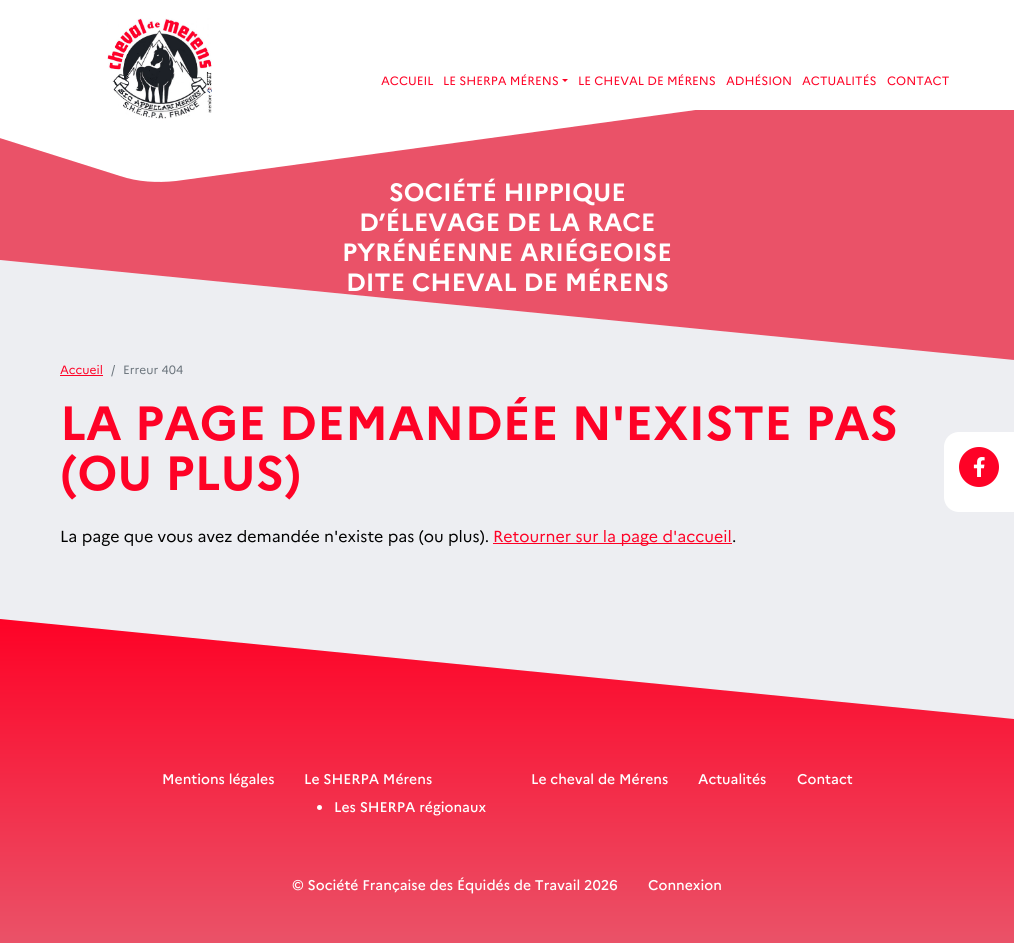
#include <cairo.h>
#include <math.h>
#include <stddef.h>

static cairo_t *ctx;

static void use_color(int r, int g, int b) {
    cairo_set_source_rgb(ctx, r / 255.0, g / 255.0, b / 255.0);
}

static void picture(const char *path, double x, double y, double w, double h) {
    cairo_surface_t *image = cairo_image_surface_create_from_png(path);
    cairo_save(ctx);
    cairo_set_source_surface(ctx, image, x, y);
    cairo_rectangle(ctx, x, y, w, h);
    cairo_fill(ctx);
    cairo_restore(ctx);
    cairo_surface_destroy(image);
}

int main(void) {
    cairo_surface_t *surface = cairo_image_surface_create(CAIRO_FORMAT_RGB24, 1014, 943);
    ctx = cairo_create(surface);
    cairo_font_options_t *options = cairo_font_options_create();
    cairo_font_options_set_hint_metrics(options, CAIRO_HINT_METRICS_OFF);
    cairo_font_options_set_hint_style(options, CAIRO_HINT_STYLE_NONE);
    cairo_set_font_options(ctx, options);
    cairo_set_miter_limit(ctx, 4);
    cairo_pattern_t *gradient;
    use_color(237, 238, 242);
    cairo_paint(ctx);
    use_color(255, 255, 255);
    cairo_rectangle(ctx, 0, 0, 1014, 110);
    cairo_fill(ctx);
    use_color(234, 82, 104);
    cairo_rectangle(ctx, 0, 110, 1014, 250);
    cairo_fill(ctx);
    cairo_save(ctx);
    cairo_rectangle(ctx, 0, 72, 1010, 110);
    cairo_clip(ctx);
    use_color(255, 255, 255);
    cairo_new_path(ctx);
    cairo_move_to(ctx, -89, 110);
    cairo_line_to(ctx, 120, 176);
    cairo_curve_to(ctx, 138, 182, 157, 183, 176, 181);
    cairo_line_to(ctx, 1010, 67);
    cairo_line_to(ctx, 1010, -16);
    cairo_line_to(ctx, -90, -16);
    cairo_close_path(ctx);
    cairo_fill(ctx);
    cairo_restore(ctx);
    picture("img1.png", 107, 18, 105, 101);
    cairo_select_font_face(ctx, "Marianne", CAIRO_FONT_SLANT_NORMAL, CAIRO_FONT_WEIGHT_NORMAL);
    cairo_set_font_size(ctx, 12);
    use_color(254, 2, 38);
    cairo_move_to(ctx, 381, 85);
    cairo_show_text(ctx, "ACCUEIL");
    cairo_move_to(ctx, 443, 85);
    cairo_show_text(ctx, "LE SHERPA MÉRENS");
    cairo_new_path(ctx);
    cairo_move_to(ctx, 562, 79);
    cairo_line_to(ctx, 568, 79);
    cairo_line_to(ctx, 565, 82);
    cairo_close_path(ctx);
    cairo_fill(ctx);
    cairo_move_to(ctx, 578, 85);
    cairo_show_text(ctx, "LE CHEVAL DE MÉRENS");
    cairo_move_to(ctx, 726, 85);
    cairo_show_text(ctx, "ADHÉSION");
    cairo_move_to(ctx, 802, 85);
    cairo_show_text(ctx, "ACTUALITÉS");
    cairo_move_to(ctx, 887, 85);
    cairo_show_text(ctx, "CONTACT");
    cairo_select_font_face(ctx, "Marianne", CAIRO_FONT_SLANT_NORMAL, CAIRO_FONT_WEIGHT_BOLD);
    cairo_set_font_size(ctx, 25);
    use_color(255, 255, 255);
    cairo_move_to(ctx, 389, 201);
    cairo_show_text(ctx, "SOCIÉTÉ HIPPIQUE");
    cairo_move_to(ctx, 359, 231);
    cairo_show_text(ctx, "D’ÉLEVAGE DE LA RACE");
    use_color(237, 238, 242);
    cairo_new_path(ctx);
    cairo_move_to(ctx, 1014, 360);
    cairo_line_to(ctx, 0, 360);
    cairo_line_to(ctx, 0, 260);
    cairo_close_path(ctx);
    cairo_fill(ctx);
    use_color(255, 255, 255);
    cairo_move_to(ctx, 342, 261);
    cairo_show_text(ctx, "PYRÉNÉENNE ARIÉGEOISE");
    cairo_move_to(ctx, 346, 291);
    cairo_show_text(ctx, "DITE CHEVAL DE MÉRENS");
    cairo_select_font_face(ctx, "Marianne", CAIRO_FONT_SLANT_NORMAL, CAIRO_FONT_WEIGHT_NORMAL);
    cairo_set_font_size(ctx, 12);
    use_color(254, 2, 38);
    cairo_move_to(ctx, 60, 374);
    cairo_show_text(ctx, "Accueil");
    cairo_rectangle(ctx, 60, 375, 43, 1);
    cairo_fill(ctx);
    use_color(108, 117, 125);
    cairo_move_to(ctx, 111, 374);
    cairo_show_text(ctx, "/");
    cairo_move_to(ctx, 123, 374);
    cairo_show_text(ctx, "Erreur 404");
    cairo_select_font_face(ctx, "Marianne", CAIRO_FONT_SLANT_NORMAL, CAIRO_FONT_WEIGHT_BOLD);
    cairo_set_font_size(ctx, 48);
    use_color(254, 2, 38);
    cairo_move_to(ctx, 60, 440);
    cairo_show_text(ctx, "LA PAGE DEMANDÉE N'EXISTE PAS");
    cairo_move_to(ctx, 60, 490);
    cairo_show_text(ctx, "(OU PLUS)");
    cairo_select_font_face(ctx, "Marianne", CAIRO_FONT_SLANT_NORMAL, CAIRO_FONT_WEIGHT_NORMAL);
    cairo_set_font_size(ctx, 16);
    use_color(0, 0, 0);
    cairo_move_to(ctx, 60, 542);
    cairo_show_text(ctx, "La page que vous avez demandée n'existe pas (ou plus).");
    use_color(254, 2, 38);
    cairo_rectangle(ctx, 493, 543, 239, 1);
    cairo_fill(ctx);
    cairo_move_to(ctx, 493, 542);
    cairo_show_text(ctx, "Retourner sur la page d'accueil");
    use_color(0, 0, 0);
    cairo_move_to(ctx, 732, 542);
    cairo_show_text(ctx, ".");
    use_color(255, 255, 255);
    cairo_new_path(ctx);
    cairo_move_to(ctx, 959, 432);
    cairo_line_to(ctx, 1014, 432);
    cairo_line_to(ctx, 1014, 512);
    cairo_line_to(ctx, 959, 512);
    cairo_curve_to(ctx, 950.5, 512, 944, 505.5, 944, 497);
    cairo_line_to(ctx, 944, 447);
    cairo_curve_to(ctx, 944, 438.5, 950.5, 432, 959, 432);
    cairo_close_path(ctx);
    cairo_fill(ctx);
    use_color(254, 2, 38);
    cairo_arc(ctx, 979, 467, 20, 0, 2 * M_PI);
    cairo_fill(ctx);
    picture("img2.png", 973, 457, 12, 20);
    gradient = cairo_pattern_create_linear(507, 619, 507, 943);
    cairo_pattern_add_color_stop_rgba(gradient, 0, 0.996, 0.008, 0.149, 1);
    cairo_pattern_add_color_stop_rgba(gradient, 1, 0.918, 0.322, 0.408, 1);
    cairo_set_source(ctx, gradient);
    cairo_pattern_destroy(gradient);
    cairo_rectangle(ctx, 0, 619, 1014, 324);
    cairo_fill(ctx);
    use_color(237, 238, 242);
    cairo_new_path(ctx);
    cairo_move_to(ctx, 0, 619);
    cairo_line_to(ctx, 1014, 619);
    cairo_line_to(ctx, 1014, 719);
    cairo_close_path(ctx);
    cairo_fill(ctx);
    cairo_select_font_face(ctx, "Marianne Medium", CAIRO_FONT_SLANT_NORMAL, CAIRO_FONT_WEIGHT_NORMAL);
    cairo_set_font_size(ctx, 14);
    use_color(255, 255, 255);
    cairo_move_to(ctx, 162, 784);
    cairo_show_text(ctx, "Mentions légales");
    cairo_move_to(ctx, 304, 784);
    cairo_show_text(ctx, "Le SHERPA Mérens");
    cairo_new_path(ctx);
    cairo_arc(ctx, 319.5, 807.5, 2.5, 0, 2 * M_PI);
    cairo_fill(ctx);
    cairo_move_to(ctx, 334, 812);
    cairo_show_text(ctx, "Les SHERPA régionaux");
    cairo_move_to(ctx, 531, 784);
    cairo_show_text(ctx, "Le cheval de Mérens");
    cairo_move_to(ctx, 698, 784);
    cairo_show_text(ctx, "Actualités");
    cairo_move_to(ctx, 797, 784);
    cairo_show_text(ctx, "Contact");
    cairo_move_to(ctx, 292, 890);
    cairo_show_text(ctx, "© Société Française des Équidés de Travail 2026");
    cairo_move_to(ctx, 648, 890);
    cairo_show_text(ctx, "Connexion");
    cairo_surface_write_to_png(surface, "result.png");
    cairo_font_options_destroy(options);
    cairo_destroy(ctx);
    cairo_surface_destroy(surface);
    return 0;
}
